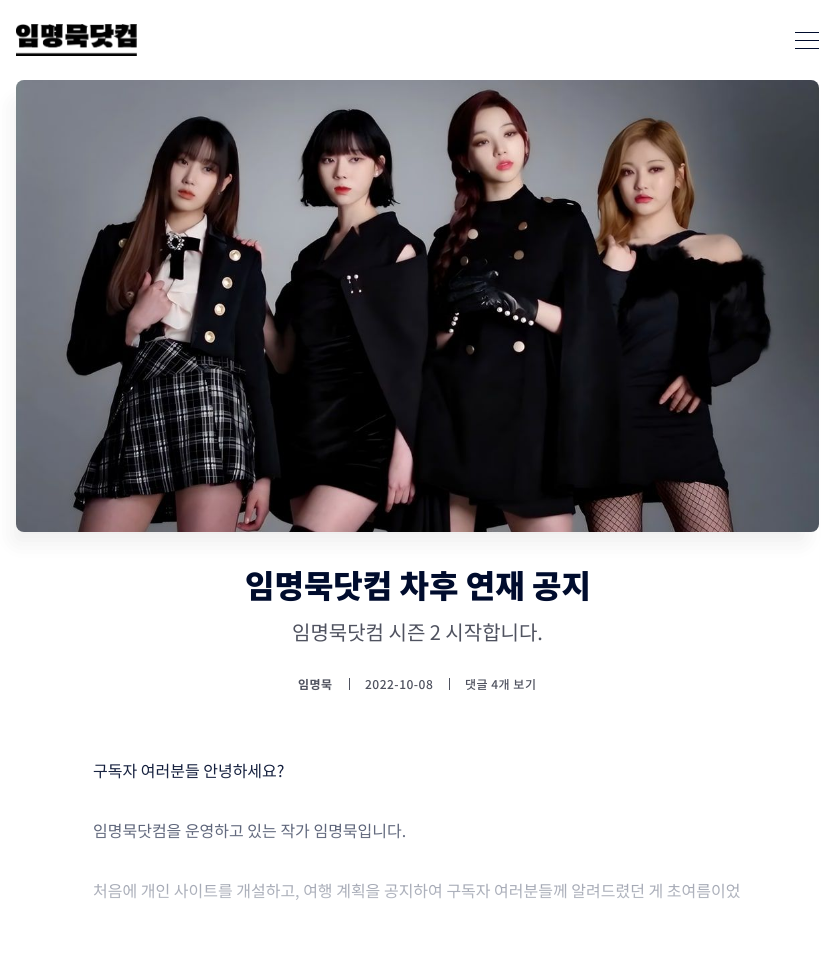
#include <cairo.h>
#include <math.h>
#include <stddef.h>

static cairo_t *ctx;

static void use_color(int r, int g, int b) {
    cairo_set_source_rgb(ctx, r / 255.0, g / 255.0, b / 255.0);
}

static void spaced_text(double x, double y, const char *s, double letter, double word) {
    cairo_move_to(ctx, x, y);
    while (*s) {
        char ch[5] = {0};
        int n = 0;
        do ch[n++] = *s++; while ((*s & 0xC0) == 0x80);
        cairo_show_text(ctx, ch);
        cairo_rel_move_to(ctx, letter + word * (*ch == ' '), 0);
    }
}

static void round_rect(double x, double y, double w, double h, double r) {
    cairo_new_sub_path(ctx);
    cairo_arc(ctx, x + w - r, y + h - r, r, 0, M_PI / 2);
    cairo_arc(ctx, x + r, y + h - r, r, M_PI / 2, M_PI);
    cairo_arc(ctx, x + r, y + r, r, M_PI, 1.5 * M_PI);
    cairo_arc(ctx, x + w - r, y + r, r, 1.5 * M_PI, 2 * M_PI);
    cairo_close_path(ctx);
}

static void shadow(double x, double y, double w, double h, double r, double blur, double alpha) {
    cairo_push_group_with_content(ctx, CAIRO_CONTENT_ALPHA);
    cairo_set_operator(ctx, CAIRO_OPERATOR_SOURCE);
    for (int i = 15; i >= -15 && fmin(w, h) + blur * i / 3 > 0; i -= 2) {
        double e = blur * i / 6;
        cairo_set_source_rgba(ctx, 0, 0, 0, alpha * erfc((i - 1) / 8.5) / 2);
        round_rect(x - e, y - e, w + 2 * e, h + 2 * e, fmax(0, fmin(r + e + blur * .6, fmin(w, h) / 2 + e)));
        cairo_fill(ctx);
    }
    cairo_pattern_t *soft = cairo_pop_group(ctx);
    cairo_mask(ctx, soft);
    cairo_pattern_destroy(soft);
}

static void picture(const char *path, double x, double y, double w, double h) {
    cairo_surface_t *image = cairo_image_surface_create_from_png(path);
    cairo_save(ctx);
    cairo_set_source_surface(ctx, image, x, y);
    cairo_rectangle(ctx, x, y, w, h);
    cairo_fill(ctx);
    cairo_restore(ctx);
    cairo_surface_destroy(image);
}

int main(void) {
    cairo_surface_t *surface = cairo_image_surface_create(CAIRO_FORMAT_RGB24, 835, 968);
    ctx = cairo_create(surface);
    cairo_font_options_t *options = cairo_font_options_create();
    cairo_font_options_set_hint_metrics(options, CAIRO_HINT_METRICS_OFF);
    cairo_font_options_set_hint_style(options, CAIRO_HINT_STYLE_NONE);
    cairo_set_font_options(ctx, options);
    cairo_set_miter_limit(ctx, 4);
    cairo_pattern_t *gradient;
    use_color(255, 255, 255);
    cairo_paint(ctx);
    picture("img1.png", 16, 24, 121, 32);
    use_color(0, 12, 45);
    cairo_rectangle(ctx, 795, 32, 24, 1);
    cairo_fill(ctx);
    cairo_rectangle(ctx, 795, 40, 24, 1);
    cairo_fill(ctx);
    cairo_rectangle(ctx, 795, 48, 24, 1);
    cairo_fill(ctx);
    use_color(0, 0, 0);
    shadow(16, 104, 787, 436, 0, 12, 0.08);
    use_color(238, 241, 240);
    round_rect(16, 80, 803, 452, 8);
    cairo_fill(ctx);
    picture("img2.png", 16, 80, 803, 452);
    cairo_select_font_face(ctx, "Noto Sans KR Black", CAIRO_FONT_SLANT_NORMAL, CAIRO_FONT_WEIGHT_NORMAL);
    cairo_set_font_size(ctx, 32);
    use_color(0, 12, 45);
    cairo_move_to(ctx, 245, 598);
    cairo_show_text(ctx, "임명묵닷컴 차후 연재 공지");
    cairo_select_font_face(ctx, "Noto Sans KR", CAIRO_FONT_SLANT_NORMAL, CAIRO_FONT_WEIGHT_NORMAL);
    cairo_set_font_size(ctx, 20);
    use_color(79, 82, 95);
    cairo_move_to(ctx, 292, 640);
    cairo_show_text(ctx, "임명묵닷컴 시즌 2 시작합니다.");
    cairo_select_font_face(ctx, "Noto Sans KR", CAIRO_FONT_SLANT_NORMAL, CAIRO_FONT_WEIGHT_BOLD);
    cairo_set_font_size(ctx, 12);
    spaced_text(298, 689, "임명묵", 0.5, 0);
    cairo_rectangle(ctx, 349, 678, 1, 12);
    cairo_fill(ctx);
    cairo_select_font_face(ctx, "Noto Sans KR Medium", CAIRO_FONT_SLANT_NORMAL, CAIRO_FONT_WEIGHT_NORMAL);
    spaced_text(365, 689, "2022-10-08", 0.5, 0);
    cairo_rectangle(ctx, 449, 678, 1, 12);
    cairo_fill(ctx);
    spaced_text(465, 689, "댓글 4개 보기", 0.5, 0);
    cairo_select_font_face(ctx, "Noto Sans KR", CAIRO_FONT_SLANT_NORMAL, CAIRO_FONT_WEIGHT_NORMAL);
    cairo_set_font_size(ctx, 16);
    use_color(0, 12, 45);
    cairo_move_to(ctx, 93, 777);
    cairo_show_text(ctx, "구독자 여러분들 안녕하세요?");
    cairo_move_to(ctx, 93, 837);
    cairo_show_text(ctx, "임명묵닷컴을 운영하고 있는 작가 임명묵입니다.");
    cairo_move_to(ctx, 93, 897);
    cairo_show_text(ctx, "처음에 개인 사이트를 개설하고, 여행 계획을 공지하여 구독자 여러분들께 알려드렸던 게 초여름이었");
    gradient = cairo_pattern_create_linear(418, 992, 418, 752);
    cairo_pattern_add_color_stop_rgba(gradient, 0.14, 1, 1, 1, 1);
    cairo_pattern_add_color_stop_rgba(gradient, 1, 1, 1, 1, 0);
    cairo_set_source(ctx, gradient);
    cairo_pattern_destroy(gradient);
    cairo_rectangle(ctx, 93, 763, 647, 137);
    cairo_fill(ctx);
    cairo_surface_write_to_png(surface, "result.png");
    cairo_font_options_destroy(options);
    cairo_destroy(ctx);
    cairo_surface_destroy(surface);
    return 0;
}
